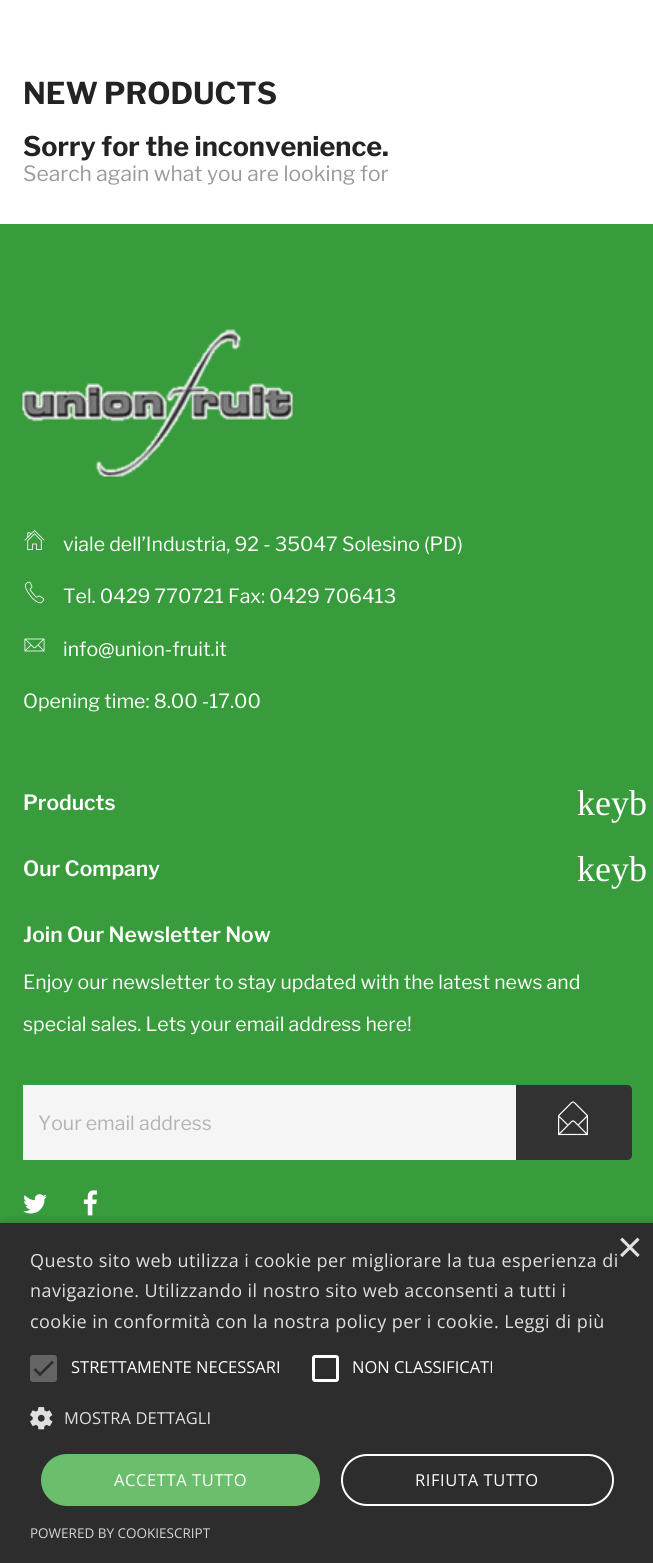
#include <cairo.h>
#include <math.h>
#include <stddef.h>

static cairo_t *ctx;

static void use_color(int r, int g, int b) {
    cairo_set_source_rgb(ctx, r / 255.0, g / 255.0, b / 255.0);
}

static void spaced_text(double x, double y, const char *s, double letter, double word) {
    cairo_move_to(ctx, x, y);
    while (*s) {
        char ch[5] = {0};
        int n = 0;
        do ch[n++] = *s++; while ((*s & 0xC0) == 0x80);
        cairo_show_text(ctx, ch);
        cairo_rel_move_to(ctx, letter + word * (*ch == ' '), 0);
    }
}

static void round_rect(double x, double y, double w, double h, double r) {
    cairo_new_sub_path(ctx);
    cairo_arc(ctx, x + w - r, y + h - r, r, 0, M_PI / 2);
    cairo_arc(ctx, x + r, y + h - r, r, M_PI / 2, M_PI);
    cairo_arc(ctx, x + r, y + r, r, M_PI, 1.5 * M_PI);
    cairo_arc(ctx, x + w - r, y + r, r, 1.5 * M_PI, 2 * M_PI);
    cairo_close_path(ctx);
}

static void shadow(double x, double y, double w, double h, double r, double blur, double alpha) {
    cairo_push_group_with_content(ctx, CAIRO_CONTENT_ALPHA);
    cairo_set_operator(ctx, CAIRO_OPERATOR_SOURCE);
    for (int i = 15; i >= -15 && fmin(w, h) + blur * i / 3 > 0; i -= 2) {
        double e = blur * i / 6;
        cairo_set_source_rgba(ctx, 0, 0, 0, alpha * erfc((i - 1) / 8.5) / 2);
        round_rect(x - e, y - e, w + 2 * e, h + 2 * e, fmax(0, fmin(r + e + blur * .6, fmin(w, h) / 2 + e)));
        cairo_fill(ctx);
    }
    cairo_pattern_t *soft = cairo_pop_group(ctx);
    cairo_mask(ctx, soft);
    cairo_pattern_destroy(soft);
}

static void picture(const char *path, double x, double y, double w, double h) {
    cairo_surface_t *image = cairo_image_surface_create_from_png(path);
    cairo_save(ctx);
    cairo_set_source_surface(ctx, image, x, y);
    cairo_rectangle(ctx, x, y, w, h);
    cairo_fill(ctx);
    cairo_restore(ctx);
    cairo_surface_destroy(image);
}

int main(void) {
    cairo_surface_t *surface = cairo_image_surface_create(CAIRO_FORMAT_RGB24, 653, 1563);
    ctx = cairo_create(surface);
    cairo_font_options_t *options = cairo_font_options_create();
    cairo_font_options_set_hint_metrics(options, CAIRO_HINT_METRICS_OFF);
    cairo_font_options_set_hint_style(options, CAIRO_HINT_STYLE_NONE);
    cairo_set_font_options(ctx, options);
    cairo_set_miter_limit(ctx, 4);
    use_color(255, 255, 255);
    cairo_paint(ctx);
    cairo_select_font_face(ctx, "Libre Franklin", CAIRO_FONT_SLANT_NORMAL, CAIRO_FONT_WEIGHT_BOLD);
    cairo_set_font_size(ctx, 30);
    use_color(35, 35, 35);
    cairo_move_to(ctx, 23, 104);
    cairo_show_text(ctx, "NEW PRODUCTS");
    cairo_set_font_size(ctx, 27);
    cairo_move_to(ctx, 23, 156);
    cairo_show_text(ctx, "Sorry for the inconvenience.");
    cairo_select_font_face(ctx, "Libre Franklin", CAIRO_FONT_SLANT_NORMAL, CAIRO_FONT_WEIGHT_NORMAL);
    cairo_set_font_size(ctx, 21);
    use_color(153, 153, 153);
    cairo_move_to(ctx, 23, 181);
    cairo_show_text(ctx, "Search again what you are looking for");
    use_color(56, 156, 60);
    cairo_rectangle(ctx, 0, 224, 653, 999);
    cairo_fill(ctx);
    picture("img1.png", 22, 329, 271, 148);
    picture("img2.png", 24, 530, 21, 20);
    cairo_set_font_size(ctx, 19.5);
    use_color(255, 255, 255);
    cairo_move_to(ctx, 63, 551);
    cairo_show_text(ctx, "viale dell’Industria, 92 - 35047 Solesino (PD)");
    picture("img3.png", 24, 581, 21, 23);
    cairo_move_to(ctx, 63, 603);
    cairo_show_text(ctx, "Tel. 0429 770721 Fax: 0429 706413");
    picture("img4.png", 24, 638, 21, 14);
    cairo_move_to(ctx, 63, 656);
    cairo_show_text(ctx, "info@union-fruit.it");
    cairo_move_to(ctx, 23, 708);
    cairo_show_text(ctx, "Opening time: 8.00 -17.00");
    cairo_select_font_face(ctx, "Libre Franklin SemiBold", CAIRO_FONT_SLANT_NORMAL, CAIRO_FONT_WEIGHT_NORMAL);
    cairo_set_font_size(ctx, 21);
    cairo_move_to(ctx, 23, 810);
    cairo_show_text(ctx, "Products");
    cairo_select_font_face(ctx, "Liberation Serif", CAIRO_FONT_SLANT_NORMAL, CAIRO_FONT_WEIGHT_NORMAL);
    cairo_set_font_size(ctx, 36);
    cairo_move_to(ctx, 577, 815);
    cairo_show_text(ctx, "keyb");
    cairo_select_font_face(ctx, "Libre Franklin SemiBold", CAIRO_FONT_SLANT_NORMAL, CAIRO_FONT_WEIGHT_NORMAL);
    cairo_set_font_size(ctx, 21);
    cairo_move_to(ctx, 23, 876);
    cairo_show_text(ctx, "Our Company");
    cairo_select_font_face(ctx, "Liberation Serif", CAIRO_FONT_SLANT_NORMAL, CAIRO_FONT_WEIGHT_NORMAL);
    cairo_set_font_size(ctx, 36);
    cairo_move_to(ctx, 577, 881);
    cairo_show_text(ctx, "keyb");
    cairo_select_font_face(ctx, "Libre Franklin SemiBold", CAIRO_FONT_SLANT_NORMAL, CAIRO_FONT_WEIGHT_NORMAL);
    cairo_set_font_size(ctx, 21);
    cairo_move_to(ctx, 23, 942);
    cairo_show_text(ctx, "Join Our Newsletter Now");
    cairo_select_font_face(ctx, "Libre Franklin", CAIRO_FONT_SLANT_NORMAL, CAIRO_FONT_WEIGHT_NORMAL);
    cairo_set_font_size(ctx, 19.5);
    cairo_move_to(ctx, 23, 989);
    cairo_show_text(ctx, "Enjoy our newsletter to stay updated with the latest news and");
    cairo_move_to(ctx, 23, 1031);
    cairo_show_text(ctx, "special sales. Lets your email address here!");
    use_color(245, 245, 245);
    cairo_rectangle(ctx, 23, 1085, 493, 75);
    cairo_fill(ctx);
    use_color(179, 179, 179);
    cairo_move_to(ctx, 38, 1130);
    cairo_show_text(ctx, "Your email address");
    use_color(50, 50, 50);
    cairo_new_path(ctx);
    cairo_move_to(ctx, 516, 1085);
    cairo_line_to(ctx, 627, 1085);
    cairo_curve_to(ctx, 630, 1085, 632, 1087, 632, 1090);
    cairo_line_to(ctx, 632, 1155);
    cairo_curve_to(ctx, 632, 1158, 630, 1160, 627, 1160);
    cairo_line_to(ctx, 516, 1160);
    cairo_close_path(ctx);
    cairo_fill(ctx);
    picture("img5.png", 558, 1101, 30, 35);
    picture("img6.png", 23, 1194, 24, 20);
    picture("img7.png", 83, 1190, 14, 26);
    use_color(0, 0, 0);
    shadow(2, 1226, 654, 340, 0, 6, 0.35);
    use_color(45, 45, 45);
    cairo_rectangle(ctx, 0, 1223, 653, 340);
    cairo_fill(ctx);
    cairo_select_font_face(ctx, "Liberation Sans", CAIRO_FONT_SLANT_NORMAL, CAIRO_FONT_WEIGHT_NORMAL);
    cairo_set_font_size(ctx, 44);
    use_color(224, 224, 224);
    cairo_move_to(ctx, 617, 1262);
    cairo_show_text(ctx, "×");
    cairo_select_font_face(ctx, "Open Sans", CAIRO_FONT_SLANT_NORMAL, CAIRO_FONT_WEIGHT_NORMAL);
    cairo_set_font_size(ctx, 18);
    spaced_text(30, 1267, "Questo sito web utilizza i cookie per migliorare la tua esperienza di", 0.45, 0);
    spaced_text(30, 1297, "navigazione. Utilizzando il nostro sito web acconsenti a tutti i", 0.45, 0);
    spaced_text(30, 1328, "cookie in conformità con la nostra policy per i cookie. Leggi di più", 0.45, 0);
    use_color(100, 100, 100);
    round_rect(30, 1355, 27, 27, 3);
    cairo_fill(ctx);
    cairo_new_path(ctx);
    cairo_move_to(ctx, 34.5, 1369);
    cairo_line_to(ctx, 40, 1374.5);
    cairo_line_to(ctx, 53, 1361.5);
    use_color(45, 45, 45);
    cairo_set_line_width(ctx, 2.7);
    cairo_stroke(ctx);
    cairo_set_font_size(ctx, 16.5);
    use_color(255, 255, 255);
    cairo_move_to(ctx, 71, 1373);
    cairo_show_text(ctx, "STRETTAMENTE NECESSARI");
    round_rect(313.5, 1356.5, 24, 24, 1.5);
    cairo_set_line_width(ctx, 3);
    cairo_stroke(ctx);
    cairo_move_to(ctx, 352, 1373);
    cairo_show_text(ctx, "NON CLASSIFICATI");
    picture("img8.png", 30, 1407, 23, 23);
    use_color(224, 224, 224);
    spaced_text(64, 1424, "MOSTRA DETTAGLI", 0.1, 0);
    use_color(107, 190, 107);
    round_rect(41, 1454, 279, 52, 26);
    cairo_fill(ctx);
    use_color(255, 255, 255);
    spaced_text(114, 1486, "ACCETTA TUTTO", 0.6, 0);
    round_rect(342, 1455, 271, 50, 25);
    cairo_set_line_width(ctx, 2);
    cairo_stroke(ctx);
    spaced_text(415, 1486, "RIFIUTA TUTTO", 0.6, 0);
    cairo_set_font_size(ctx, 13.5);
    use_color(213, 213, 213);
    cairo_move_to(ctx, 30, 1538);
    cairo_show_text(ctx, "POWERED BY COOKIESCRIPT");
    cairo_surface_write_to_png(surface, "result.png");
    cairo_font_options_destroy(options);
    cairo_destroy(ctx);
    cairo_surface_destroy(surface);
    return 0;
}
